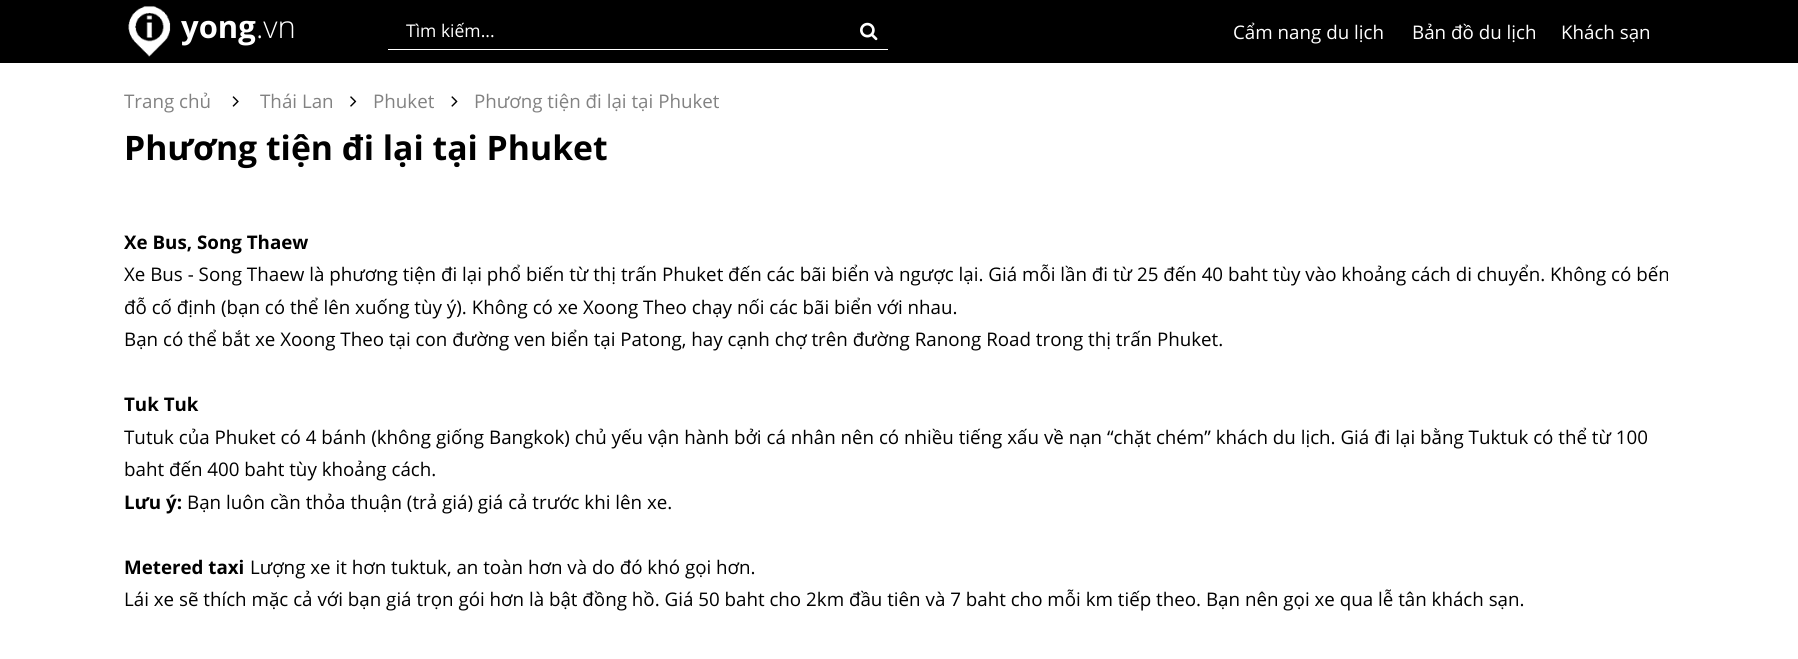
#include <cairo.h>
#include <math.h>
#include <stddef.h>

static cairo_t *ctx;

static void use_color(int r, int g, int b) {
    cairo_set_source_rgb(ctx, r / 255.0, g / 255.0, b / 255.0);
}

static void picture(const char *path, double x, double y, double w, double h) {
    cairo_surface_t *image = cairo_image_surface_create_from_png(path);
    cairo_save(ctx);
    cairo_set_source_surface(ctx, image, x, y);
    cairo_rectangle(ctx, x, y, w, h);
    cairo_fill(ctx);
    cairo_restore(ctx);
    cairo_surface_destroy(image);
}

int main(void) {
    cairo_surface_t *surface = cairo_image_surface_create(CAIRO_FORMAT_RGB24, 1798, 659);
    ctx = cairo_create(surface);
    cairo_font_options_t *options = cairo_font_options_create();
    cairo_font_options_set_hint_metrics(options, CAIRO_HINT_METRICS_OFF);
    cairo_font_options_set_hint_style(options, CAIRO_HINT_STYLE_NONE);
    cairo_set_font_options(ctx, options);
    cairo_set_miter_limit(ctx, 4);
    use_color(255, 255, 255);
    cairo_paint(ctx);
    use_color(0, 0, 0);
    cairo_rectangle(ctx, 0, 0, 1798, 63);
    cairo_fill(ctx);
    picture("img1.png", 128, 6, 43, 51);
    cairo_select_font_face(ctx, "Open Sans", CAIRO_FONT_SLANT_NORMAL, CAIRO_FONT_WEIGHT_BOLD);
    cairo_set_font_size(ctx, 31);
    use_color(255, 255, 255);
    cairo_move_to(ctx, 181, 38);
    cairo_show_text(ctx, "yong");
    cairo_select_font_face(ctx, "Open Sans Light", CAIRO_FONT_SLANT_NORMAL, CAIRO_FONT_WEIGHT_NORMAL);
    cairo_move_to(ctx, 256, 38);
    cairo_show_text(ctx, ".vn");
    cairo_rectangle(ctx, 388, 49, 500, 1);
    cairo_fill(ctx);
    cairo_select_font_face(ctx, "Open Sans", CAIRO_FONT_SLANT_NORMAL, CAIRO_FONT_WEIGHT_NORMAL);
    cairo_set_font_size(ctx, 17.5);
    cairo_move_to(ctx, 406, 37);
    cairo_show_text(ctx, "Tìm kiếm...");
    picture("img2.png", 860, 22, 18, 19);
    cairo_set_font_size(ctx, 18.75);
    cairo_move_to(ctx, 1233, 39);
    cairo_show_text(ctx, "Cẩm nang du lịch");
    cairo_move_to(ctx, 1412, 39);
    cairo_show_text(ctx, "Bản đồ du lịch");
    cairo_move_to(ctx, 1561, 39);
    cairo_show_text(ctx, "Khách sạn");
    use_color(130, 130, 130);
    cairo_move_to(ctx, 124, 108);
    cairo_show_text(ctx, "Trang chủ");
    picture("img3.png", 232, 96, 7, 11);
    cairo_move_to(ctx, 260, 108);
    cairo_show_text(ctx, "Thái Lan");
    picture("img4.png", 350, 96, 7, 11);
    cairo_move_to(ctx, 373, 108);
    cairo_show_text(ctx, "Phuket");
    picture("img5.png", 451, 96, 7, 11);
    cairo_move_to(ctx, 474, 108);
    cairo_show_text(ctx, "Phương tiện đi lại tại Phuket");
    cairo_select_font_face(ctx, "Open Sans", CAIRO_FONT_SLANT_NORMAL, CAIRO_FONT_WEIGHT_BOLD);
    cairo_set_font_size(ctx, 33.75);
    use_color(0, 0, 0);
    cairo_move_to(ctx, 124, 160);
    cairo_show_text(ctx, "Phương tiện đi lại tại Phuket");
    cairo_set_font_size(ctx, 18.75);
    cairo_move_to(ctx, 124, 249);
    cairo_show_text(ctx, "Xe Bus, Song Thaew");
    cairo_select_font_face(ctx, "Open Sans", CAIRO_FONT_SLANT_NORMAL, CAIRO_FONT_WEIGHT_NORMAL);
    cairo_move_to(ctx, 124, 281);
    cairo_show_text(ctx, "Xe Bus - Song Thaew là phương tiện đi lại phổ biến từ thị trấn Phuket đến các bãi biển và ngược lại. Giá mỗi lần đi từ 25 đến 40 baht tùy vào khoảng cách di chuyển. Không có bến");
    cairo_move_to(ctx, 124, 314);
    cairo_show_text(ctx, "đỗ cố định (bạn có thể lên xuống tùy ý). Không có xe Xoong Theo chạy nối các bãi biển với nhau.");
    cairo_move_to(ctx, 124, 346);
    cairo_show_text(ctx, "Bạn có thể bắt xe Xoong Theo tại con đường ven biển tại Patong, hay cạnh chợ trên đường Ranong Road trong thị trấn Phuket.");
    cairo_select_font_face(ctx, "Open Sans", CAIRO_FONT_SLANT_NORMAL, CAIRO_FONT_WEIGHT_BOLD);
    cairo_move_to(ctx, 124, 411);
    cairo_show_text(ctx, "Tuk Tuk");
    cairo_select_font_face(ctx, "Open Sans", CAIRO_FONT_SLANT_NORMAL, CAIRO_FONT_WEIGHT_NORMAL);
    cairo_move_to(ctx, 124, 444);
    cairo_show_text(ctx, "Tutuk của Phuket có 4 bánh (không giống Bangkok) chủ yếu vận hành bởi cá nhân nên có nhiều tiếng xấu về nạn “chặt chém” khách du lịch. Giá đi lại bằng Tuktuk có thể từ 100");
    cairo_move_to(ctx, 124, 476);
    cairo_show_text(ctx, "baht đến 400 baht tùy khoảng cách.");
    cairo_select_font_face(ctx, "Open Sans", CAIRO_FONT_SLANT_NORMAL, CAIRO_FONT_WEIGHT_BOLD);
    cairo_move_to(ctx, 124, 509);
    cairo_show_text(ctx, "Lưu ý:");
    cairo_select_font_face(ctx, "Open Sans", CAIRO_FONT_SLANT_NORMAL, CAIRO_FONT_WEIGHT_NORMAL);
    cairo_move_to(ctx, 187, 509);
    cairo_show_text(ctx, "Bạn luôn cần thỏa thuận (trả giá) giá cả trước khi lên xe.");
    cairo_select_font_face(ctx, "Open Sans", CAIRO_FONT_SLANT_NORMAL, CAIRO_FONT_WEIGHT_BOLD);
    cairo_move_to(ctx, 124, 574);
    cairo_show_text(ctx, "Metered taxi");
    cairo_select_font_face(ctx, "Open Sans", CAIRO_FONT_SLANT_NORMAL, CAIRO_FONT_WEIGHT_NORMAL);
    cairo_move_to(ctx, 250, 574);
    cairo_show_text(ctx, "Lượng xe it hơn tuktuk, an toàn hơn và do đó khó gọi hơn.");
    cairo_move_to(ctx, 124, 606);
    cairo_show_text(ctx, "Lái xe sẽ thích mặc cả với bạn giá trọn gói hơn là bật đồng hồ. Giá 50 baht cho 2km đầu tiên và 7 baht cho mỗi km tiếp theo. Bạn nên gọi xe qua lễ tân khách sạn.");
    cairo_surface_write_to_png(surface, "result.png");
    cairo_font_options_destroy(options);
    cairo_destroy(ctx);
    cairo_surface_destroy(surface);
    return 0;
}
